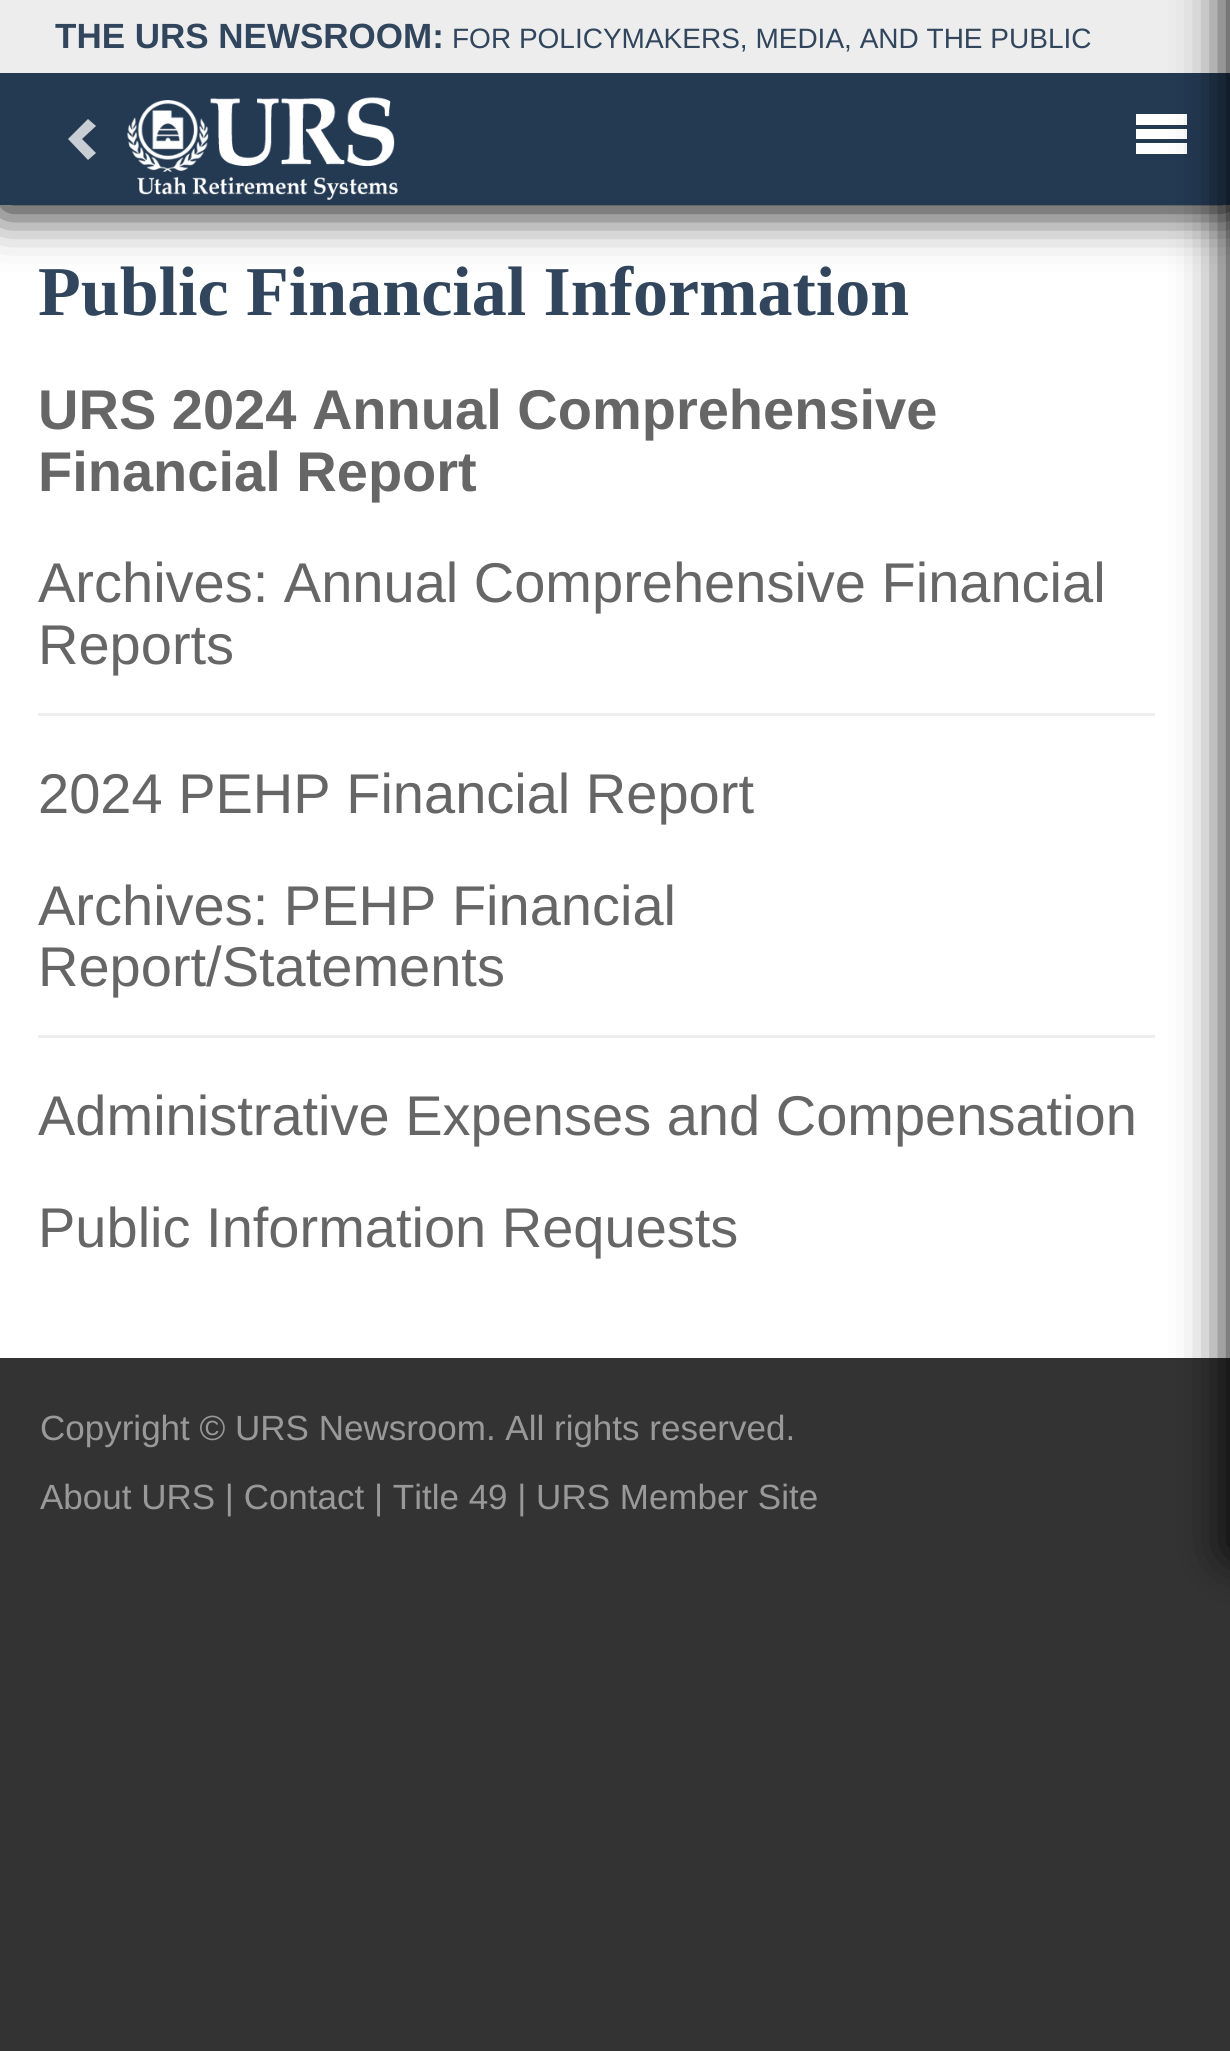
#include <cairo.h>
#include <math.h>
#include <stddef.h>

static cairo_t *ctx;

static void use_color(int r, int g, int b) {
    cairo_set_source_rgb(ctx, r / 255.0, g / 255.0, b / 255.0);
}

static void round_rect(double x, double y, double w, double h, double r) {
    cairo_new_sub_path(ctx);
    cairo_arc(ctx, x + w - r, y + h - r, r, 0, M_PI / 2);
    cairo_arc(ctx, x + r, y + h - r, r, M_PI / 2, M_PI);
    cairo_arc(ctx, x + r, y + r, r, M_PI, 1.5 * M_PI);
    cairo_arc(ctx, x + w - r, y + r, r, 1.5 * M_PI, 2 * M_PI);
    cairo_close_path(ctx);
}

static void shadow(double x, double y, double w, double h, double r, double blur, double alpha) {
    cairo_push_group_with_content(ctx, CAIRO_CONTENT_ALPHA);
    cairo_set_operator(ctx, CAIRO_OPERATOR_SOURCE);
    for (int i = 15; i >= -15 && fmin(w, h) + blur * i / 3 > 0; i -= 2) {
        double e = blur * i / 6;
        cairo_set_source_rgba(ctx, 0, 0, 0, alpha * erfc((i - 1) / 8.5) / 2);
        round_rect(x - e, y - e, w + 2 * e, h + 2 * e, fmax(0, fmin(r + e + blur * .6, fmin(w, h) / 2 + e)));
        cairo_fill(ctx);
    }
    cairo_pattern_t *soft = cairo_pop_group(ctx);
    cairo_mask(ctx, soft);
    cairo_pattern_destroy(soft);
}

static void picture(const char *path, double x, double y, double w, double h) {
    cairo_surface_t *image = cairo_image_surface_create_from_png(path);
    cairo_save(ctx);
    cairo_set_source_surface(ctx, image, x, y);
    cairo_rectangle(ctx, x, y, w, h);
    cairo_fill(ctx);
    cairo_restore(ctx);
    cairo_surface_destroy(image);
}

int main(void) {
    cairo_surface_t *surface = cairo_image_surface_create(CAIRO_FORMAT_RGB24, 1230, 2051);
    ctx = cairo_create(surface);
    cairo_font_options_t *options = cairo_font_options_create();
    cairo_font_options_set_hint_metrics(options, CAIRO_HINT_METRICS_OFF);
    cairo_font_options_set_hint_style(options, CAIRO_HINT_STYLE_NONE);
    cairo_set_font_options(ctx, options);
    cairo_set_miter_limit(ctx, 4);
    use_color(51, 51, 51);
    cairo_paint(ctx);
    use_color(255, 255, 255);
    cairo_rectangle(ctx, 0, 205, 1230, 1153);
    cairo_fill(ctx);
    use_color(0, 0, 0);
    shadow(0, 73, 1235, 137, 0, 25, 1);
    use_color(36, 58, 83);
    cairo_rectangle(ctx, 0, 73, 1230, 132);
    cairo_fill(ctx);
    use_color(200, 206, 212);
    cairo_new_path(ctx);
    cairo_move_to(ctx, 96, 126);
    cairo_line_to(ctx, 82, 139);
    cairo_line_to(ctx, 96, 153);
    cairo_line_to(ctx, 88, 160);
    cairo_line_to(ctx, 68, 139);
    cairo_line_to(ctx, 88, 119);
    cairo_close_path(ctx);
    cairo_fill(ctx);
    picture("img1.png", 127, 97, 271, 103);
    use_color(255, 255, 255);
    cairo_new_path(ctx);
    cairo_move_to(ctx, 1136, 114);
    cairo_line_to(ctx, 1187, 114);
    cairo_line_to(ctx, 1187, 125);
    cairo_line_to(ctx, 1136, 125);
    cairo_close_path(ctx);
    cairo_move_to(ctx, 1136, 129);
    cairo_line_to(ctx, 1187, 129);
    cairo_line_to(ctx, 1187, 139);
    cairo_line_to(ctx, 1136, 139);
    cairo_close_path(ctx);
    cairo_move_to(ctx, 1136, 143);
    cairo_line_to(ctx, 1187, 143);
    cairo_line_to(ctx, 1187, 154);
    cairo_line_to(ctx, 1136, 154);
    cairo_close_path(ctx);
    cairo_fill(ctx);
    use_color(237, 237, 237);
    cairo_rectangle(ctx, 0, 0, 1230, 73);
    cairo_fill(ctx);
    cairo_select_font_face(ctx, "Liberation Sans", CAIRO_FONT_SLANT_NORMAL, CAIRO_FONT_WEIGHT_BOLD);
    cairo_set_font_size(ctx, 35);
    use_color(49, 70, 93);
    cairo_move_to(ctx, 55, 48);
    cairo_show_text(ctx, "THE URS NEWSROOM:");
    cairo_select_font_face(ctx, "Liberation Sans", CAIRO_FONT_SLANT_NORMAL, CAIRO_FONT_WEIGHT_NORMAL);
    cairo_set_font_size(ctx, 28);
    cairo_move_to(ctx, 452, 48);
    cairo_show_text(ctx, "FOR POLICYMAKERS, MEDIA, AND THE PUBLIC");
    use_color(238, 238, 238);
    cairo_rectangle(ctx, 38, 713, 1117, 3);
    cairo_fill(ctx);
    cairo_rectangle(ctx, 38, 1035, 1117, 3);
    cairo_fill(ctx);
    use_color(0, 0, 0);
    shadow(1230, -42, 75, 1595, 0, 25, 1);
    cairo_select_font_face(ctx, "Liberation Serif", CAIRO_FONT_SLANT_NORMAL, CAIRO_FONT_WEIGHT_BOLD);
    cairo_set_font_size(ctx, 70);
    use_color(49, 70, 93);
    cairo_move_to(ctx, 38, 315);
    cairo_show_text(ctx, "Public Financial Information");
    cairo_select_font_face(ctx, "Liberation Sans", CAIRO_FONT_SLANT_NORMAL, CAIRO_FONT_WEIGHT_BOLD);
    cairo_set_font_size(ctx, 56);
    use_color(102, 102, 102);
    cairo_move_to(ctx, 38, 429);
    cairo_show_text(ctx, "URS 2024 Annual Comprehensive");
    cairo_move_to(ctx, 38, 491);
    cairo_show_text(ctx, "Financial Report");
    cairo_select_font_face(ctx, "Liberation Sans", CAIRO_FONT_SLANT_NORMAL, CAIRO_FONT_WEIGHT_NORMAL);
    cairo_move_to(ctx, 38, 602);
    cairo_show_text(ctx, "Archives: Annual Comprehensive Financial");
    cairo_move_to(ctx, 38, 664);
    cairo_show_text(ctx, "Reports");
    cairo_move_to(ctx, 38, 813);
    cairo_show_text(ctx, "2024 PEHP Financial Report");
    cairo_move_to(ctx, 38, 925);
    cairo_show_text(ctx, "Archives: PEHP Financial");
    cairo_move_to(ctx, 38, 986);
    cairo_show_text(ctx, "Report/Statements");
    cairo_move_to(ctx, 38, 1135);
    cairo_show_text(ctx, "Administrative Expenses and Compensation");
    cairo_move_to(ctx, 38, 1247);
    cairo_show_text(ctx, "Public Information Requests");
    cairo_set_font_size(ctx, 35);
    use_color(153, 153, 153);
    cairo_move_to(ctx, 40, 1440);
    cairo_show_text(ctx, "Copyright © URS Newsroom. All rights reserved.");
    cairo_move_to(ctx, 40, 1509);
    cairo_show_text(ctx, "About URS | Contact | Title 49 | URS Member Site");
    cairo_surface_write_to_png(surface, "result.png");
    cairo_font_options_destroy(options);
    cairo_destroy(ctx);
    cairo_surface_destroy(surface);
    return 0;
}
